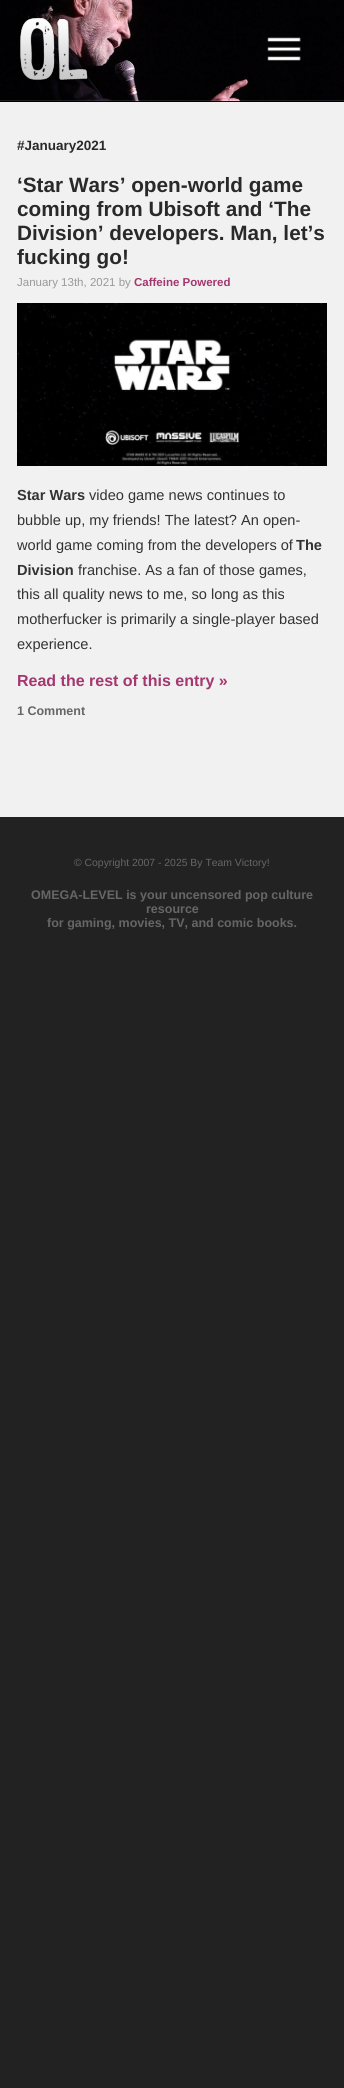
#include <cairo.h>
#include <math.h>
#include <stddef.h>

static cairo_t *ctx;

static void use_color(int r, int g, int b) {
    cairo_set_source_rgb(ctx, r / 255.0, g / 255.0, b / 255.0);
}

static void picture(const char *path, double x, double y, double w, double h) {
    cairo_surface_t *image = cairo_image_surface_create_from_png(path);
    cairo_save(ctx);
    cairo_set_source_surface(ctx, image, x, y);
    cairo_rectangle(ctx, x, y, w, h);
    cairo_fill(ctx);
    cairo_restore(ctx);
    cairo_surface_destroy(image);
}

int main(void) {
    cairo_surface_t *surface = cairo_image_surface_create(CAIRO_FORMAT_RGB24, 344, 2088);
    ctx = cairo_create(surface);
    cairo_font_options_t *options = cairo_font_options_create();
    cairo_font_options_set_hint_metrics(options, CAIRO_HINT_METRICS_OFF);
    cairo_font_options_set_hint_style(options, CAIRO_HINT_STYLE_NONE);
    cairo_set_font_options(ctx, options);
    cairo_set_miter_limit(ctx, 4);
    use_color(34, 34, 34);
    cairo_paint(ctx);
    use_color(241, 241, 241);
    cairo_rectangle(ctx, 0, 100, 344, 717);
    cairo_fill(ctx);
    use_color(0, 0, 0);
    cairo_rectangle(ctx, 0, 101, 344, 1);
    cairo_fill(ctx);
    picture("img1.png", 0, 0, 344, 102);
    picture("img2.png", 20, 10, 70, 76);
    picture("img3.png", 267, 37, 34, 24);
    cairo_select_font_face(ctx, "Liberation Sans", CAIRO_FONT_SLANT_NORMAL, CAIRO_FONT_WEIGHT_BOLD);
    cairo_set_font_size(ctx, 13.5);
    use_color(41, 41, 41);
    cairo_move_to(ctx, 17, 150);
    cairo_show_text(ctx, "#January2021");
    cairo_set_font_size(ctx, 20.75);
    cairo_move_to(ctx, 17, 192);
    cairo_show_text(ctx, "‘Star Wars’ open-world game");
    cairo_move_to(ctx, 17, 216);
    cairo_show_text(ctx, "coming from Ubisoft and ‘The");
    cairo_move_to(ctx, 17, 240);
    cairo_show_text(ctx, "Division’ developers. Man, let’s");
    cairo_move_to(ctx, 17, 264);
    cairo_show_text(ctx, "fucking go!");
    cairo_select_font_face(ctx, "Liberation Sans", CAIRO_FONT_SLANT_NORMAL, CAIRO_FONT_WEIGHT_NORMAL);
    cairo_set_font_size(ctx, 11.5);
    use_color(153, 153, 153);
    cairo_move_to(ctx, 17, 286);
    cairo_show_text(ctx, "January 13th, 2021 by");
    cairo_select_font_face(ctx, "Liberation Sans", CAIRO_FONT_SLANT_NORMAL, CAIRO_FONT_WEIGHT_BOLD);
    use_color(164, 55, 110);
    cairo_move_to(ctx, 134, 286);
    cairo_show_text(ctx, "Caffeine Powered");
    picture("img4.png", 17, 303, 310, 163);
    cairo_set_font_size(ctx, 14.6);
    use_color(51, 51, 51);
    cairo_move_to(ctx, 17, 500);
    cairo_show_text(ctx, "Star Wars");
    cairo_select_font_face(ctx, "Liberation Sans", CAIRO_FONT_SLANT_NORMAL, CAIRO_FONT_WEIGHT_NORMAL);
    cairo_move_to(ctx, 89, 500);
    cairo_show_text(ctx, "video game news continues to");
    cairo_move_to(ctx, 17, 525);
    cairo_show_text(ctx, "bubble up, my friends! The latest? An open-");
    cairo_move_to(ctx, 17, 550);
    cairo_show_text(ctx, "world game coming from the developers of");
    cairo_select_font_face(ctx, "Liberation Sans", CAIRO_FONT_SLANT_NORMAL, CAIRO_FONT_WEIGHT_BOLD);
    cairo_move_to(ctx, 296, 550);
    cairo_show_text(ctx, "The");
    cairo_move_to(ctx, 17, 575);
    cairo_show_text(ctx, "Division");
    cairo_select_font_face(ctx, "Liberation Sans", CAIRO_FONT_SLANT_NORMAL, CAIRO_FONT_WEIGHT_NORMAL);
    cairo_move_to(ctx, 78, 575);
    cairo_show_text(ctx, "franchise. As a fan of those games,");
    cairo_move_to(ctx, 17, 599);
    cairo_show_text(ctx, "this all quality news to me, so long as this");
    cairo_move_to(ctx, 17, 624);
    cairo_show_text(ctx, "motherfucker is primarily a single-player based");
    cairo_move_to(ctx, 17, 649);
    cairo_show_text(ctx, "experience.");
    cairo_select_font_face(ctx, "Liberation Sans", CAIRO_FONT_SLANT_NORMAL, CAIRO_FONT_WEIGHT_BOLD);
    cairo_set_font_size(ctx, 16);
    use_color(164, 55, 110);
    cairo_move_to(ctx, 17, 686);
    cairo_show_text(ctx, "Read the rest of this entry »");
    cairo_set_font_size(ctx, 12.5);
    use_color(102, 102, 102);
    cairo_move_to(ctx, 17, 715);
    cairo_show_text(ctx, "1 Comment");
    cairo_select_font_face(ctx, "Liberation Sans", CAIRO_FONT_SLANT_NORMAL, CAIRO_FONT_WEIGHT_NORMAL);
    cairo_set_font_size(ctx, 10.4);
    cairo_move_to(ctx, 74, 866);
    cairo_show_text(ctx, "© Copyright 2007 - 2025 By Team Victory!");
    cairo_select_font_face(ctx, "Liberation Sans", CAIRO_FONT_SLANT_NORMAL, CAIRO_FONT_WEIGHT_BOLD);
    cairo_set_font_size(ctx, 12.5);
    cairo_move_to(ctx, 31, 899);
    cairo_show_text(ctx, "OMEGA-LEVEL is your uncensored pop culture");
    cairo_move_to(ctx, 146, 913);
    cairo_show_text(ctx, "resource");
    cairo_move_to(ctx, 47, 927);
    cairo_show_text(ctx, "for gaming, movies, TV, and comic books.");
    cairo_surface_write_to_png(surface, "result.png");
    cairo_font_options_destroy(options);
    cairo_destroy(ctx);
    cairo_surface_destroy(surface);
    return 0;
}
